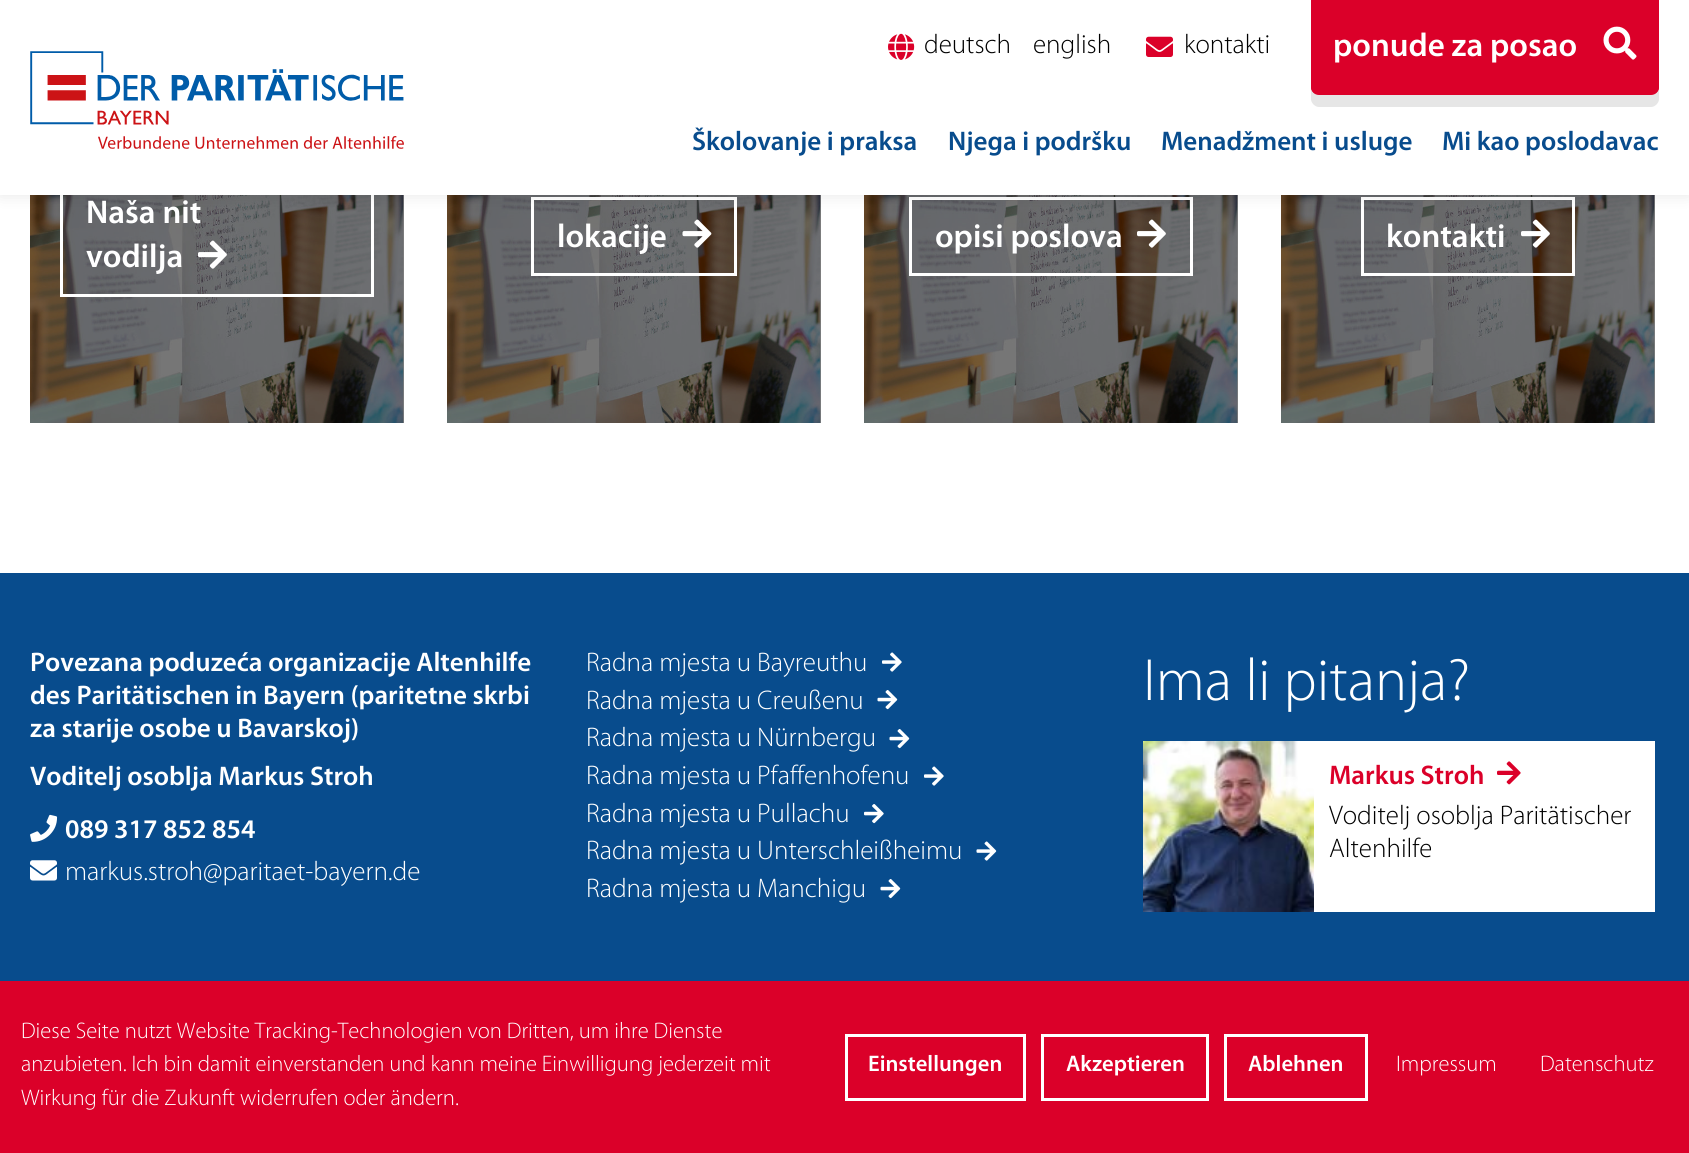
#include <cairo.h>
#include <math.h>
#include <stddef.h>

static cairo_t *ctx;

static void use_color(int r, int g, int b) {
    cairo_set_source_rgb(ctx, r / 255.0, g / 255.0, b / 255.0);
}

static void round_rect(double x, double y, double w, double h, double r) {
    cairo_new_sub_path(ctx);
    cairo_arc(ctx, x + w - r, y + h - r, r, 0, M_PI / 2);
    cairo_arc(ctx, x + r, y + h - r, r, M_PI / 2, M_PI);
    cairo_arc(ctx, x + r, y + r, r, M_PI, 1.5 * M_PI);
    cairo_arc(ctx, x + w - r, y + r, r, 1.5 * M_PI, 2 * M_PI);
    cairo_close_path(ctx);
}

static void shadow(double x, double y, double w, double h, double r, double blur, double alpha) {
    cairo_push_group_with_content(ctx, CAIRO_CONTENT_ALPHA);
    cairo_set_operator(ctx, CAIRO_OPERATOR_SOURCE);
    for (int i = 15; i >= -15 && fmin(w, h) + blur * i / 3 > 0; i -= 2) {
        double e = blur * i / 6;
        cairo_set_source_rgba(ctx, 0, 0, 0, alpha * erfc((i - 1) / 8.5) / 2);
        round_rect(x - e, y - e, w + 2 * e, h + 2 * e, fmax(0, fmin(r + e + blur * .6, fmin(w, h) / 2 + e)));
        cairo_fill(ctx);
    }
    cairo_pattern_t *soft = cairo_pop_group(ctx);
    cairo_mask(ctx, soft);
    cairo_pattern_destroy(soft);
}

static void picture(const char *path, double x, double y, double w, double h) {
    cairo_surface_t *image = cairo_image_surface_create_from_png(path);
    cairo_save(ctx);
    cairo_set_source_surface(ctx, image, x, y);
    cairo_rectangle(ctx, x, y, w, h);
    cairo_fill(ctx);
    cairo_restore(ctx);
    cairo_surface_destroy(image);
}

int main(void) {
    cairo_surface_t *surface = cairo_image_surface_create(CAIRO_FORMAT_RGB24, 1689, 1153);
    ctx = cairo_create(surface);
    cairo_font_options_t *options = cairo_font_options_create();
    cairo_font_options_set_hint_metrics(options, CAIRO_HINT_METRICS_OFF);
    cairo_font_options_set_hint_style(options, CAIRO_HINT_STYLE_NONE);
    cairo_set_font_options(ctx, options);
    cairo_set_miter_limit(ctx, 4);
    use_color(255, 255, 255);
    cairo_paint(ctx);
    use_color(128, 128, 128);
    cairo_rectangle(ctx, 1654, 195, 1, 228);
    cairo_fill(ctx);
    cairo_rectangle(ctx, 1237, 195, 1, 228);
    cairo_fill(ctx);
    cairo_rectangle(ctx, 820, 195, 1, 228);
    cairo_fill(ctx);
    cairo_rectangle(ctx, 403, 195, 1, 228);
    cairo_fill(ctx);
    picture("img5.png", 30, 195, 374, 228);
    cairo_rectangle(ctx, 61.5, 178.5, 311, 117);
    use_color(255, 255, 255);
    cairo_set_line_width(ctx, 3);
    cairo_stroke(ctx);
    picture("img5.png", 447, 195, 374, 228);
    cairo_rectangle(ctx, 532.5, 198.5, 203, 76);
    cairo_stroke(ctx);
    picture("img5.png", 864, 195, 374, 228);
    cairo_rectangle(ctx, 910.5, 198.5, 281, 76);
    cairo_stroke(ctx);
    picture("img5.png", 1281, 195, 374, 228);
    cairo_rectangle(ctx, 1362.5, 198.5, 211, 76);
    cairo_stroke(ctx);
    use_color(0, 0, 0);
    shadow(0, 0, 1689, 195, 0, 7.5, 0.1);
    use_color(255, 255, 255);
    cairo_rectangle(ctx, 0, 0, 1689, 195);
    cairo_fill(ctx);
    picture("img1.png", 888, 33, 27, 27);
    cairo_select_font_face(ctx, "Myriad Light", CAIRO_FONT_SLANT_NORMAL, CAIRO_FONT_WEIGHT_NORMAL);
    cairo_set_font_size(ctx, 27);
    use_color(0, 0, 0);
    cairo_move_to(ctx, 924, 53);
    cairo_show_text(ctx, "deutsch");
    cairo_move_to(ctx, 1033, 53);
    cairo_show_text(ctx, "english");
    picture("img2.png", 1146, 36, 27, 21);
    cairo_move_to(ctx, 1184, 53);
    cairo_show_text(ctx, "kontakti");
    use_color(230, 230, 230);
    cairo_new_path(ctx);
    cairo_move_to(ctx, 1311, 87);
    cairo_line_to(ctx, 1311, 99);
    cairo_curve_to(ctx, 1311, 103, 1315, 107, 1319, 107);
    cairo_line_to(ctx, 1651, 107);
    cairo_curve_to(ctx, 1655, 107, 1659, 103, 1659, 99);
    cairo_line_to(ctx, 1659, 87);
    cairo_curve_to(ctx, 1659, 91, 1656, 94, 1652, 94);
    cairo_line_to(ctx, 1318, 94);
    cairo_curve_to(ctx, 1314, 94, 1311, 91, 1311, 87);
    cairo_close_path(ctx);
    cairo_fill(ctx);
    use_color(219, 0, 41);
    cairo_new_path(ctx);
    cairo_move_to(ctx, 1311, 0);
    cairo_line_to(ctx, 1659, 0);
    cairo_line_to(ctx, 1659, 87);
    cairo_curve_to(ctx, 1659, 91.5, 1655.5, 95, 1651, 95);
    cairo_line_to(ctx, 1319, 95);
    cairo_curve_to(ctx, 1314.5, 95, 1311, 91.5, 1311, 87);
    cairo_close_path(ctx);
    cairo_fill(ctx);
    cairo_set_fill_rule(ctx, CAIRO_FILL_RULE_EVEN_ODD);
    cairo_new_path(ctx);
    cairo_move_to(ctx, 1311, 0);
    cairo_line_to(ctx, 1659, 0);
    cairo_line_to(ctx, 1659, 87);
    cairo_curve_to(ctx, 1659, 91, 1656, 94, 1652, 94);
    cairo_line_to(ctx, 1318, 94);
    cairo_curve_to(ctx, 1314, 94, 1311, 91, 1311, 87);
    cairo_close_path(ctx);
    cairo_move_to(ctx, 1314, 0);
    cairo_line_to(ctx, 1656, 0);
    cairo_line_to(ctx, 1656, 87);
    cairo_curve_to(ctx, 1656, 89, 1654, 92, 1652, 92);
    cairo_line_to(ctx, 1318, 92);
    cairo_curve_to(ctx, 1316, 92, 1314, 89, 1314, 87);
    cairo_close_path(ctx);
    cairo_fill(ctx);
    cairo_select_font_face(ctx, "Myriad SemiBold", CAIRO_FONT_SLANT_NORMAL, CAIRO_FONT_WEIGHT_NORMAL);
    cairo_set_font_size(ctx, 33);
    use_color(255, 255, 255);
    cairo_move_to(ctx, 1333, 56);
    cairo_show_text(ctx, "ponude za posao");
    picture("img3.png", 1603, 26, 34, 34);
    picture("img4.png", 30, 51, 374, 98);
    cairo_set_font_size(ctx, 27);
    use_color(8, 76, 141);
    cairo_move_to(ctx, 692, 150);
    cairo_show_text(ctx, "Školovanje i praksa");
    cairo_move_to(ctx, 948, 150);
    cairo_show_text(ctx, "Njega i podršku");
    cairo_move_to(ctx, 1161, 150);
    cairo_show_text(ctx, "Menadžment i usluge");
    cairo_move_to(ctx, 1442, 150);
    cairo_show_text(ctx, "Mi kao poslodavac");
    cairo_set_font_size(ctx, 33);
    use_color(255, 255, 255);
    cairo_move_to(ctx, 86, 223);
    cairo_show_text(ctx, "Naša nit");
    cairo_move_to(ctx, 86, 267);
    cairo_show_text(ctx, "vodilja");
    picture("img6.png", 198, 240, 29, 29);
    cairo_move_to(ctx, 557, 247);
    cairo_show_text(ctx, "lokacije");
    picture("img7.png", 682, 219, 30, 29);
    cairo_move_to(ctx, 935, 247);
    cairo_show_text(ctx, "opisi poslova");
    picture("img8.png", 1137, 219, 29, 29);
    cairo_move_to(ctx, 1386, 247);
    cairo_show_text(ctx, "kontakti");
    picture("img9.png", 1521, 219, 29, 29);
    use_color(8, 76, 141);
    cairo_rectangle(ctx, 0, 573, 1689, 408);
    cairo_fill(ctx);
    cairo_set_font_size(ctx, 27);
    use_color(255, 255, 255);
    cairo_move_to(ctx, 30, 671);
    cairo_show_text(ctx, "Povezana poduzeća organizacije Altenhilfe");
    cairo_move_to(ctx, 30, 704);
    cairo_show_text(ctx, "des Paritätischen in Bayern (paritetne skrbi");
    cairo_move_to(ctx, 30, 737);
    cairo_show_text(ctx, "za starije osobe u Bavarskoj)");
    cairo_move_to(ctx, 30, 785);
    cairo_show_text(ctx, "Voditelj osoblja Markus Stroh");
    picture("img10.png", 30, 814, 28, 28);
    cairo_move_to(ctx, 65, 838);
    cairo_show_text(ctx, "089 317 852 854");
    picture("img11.png", 30, 860, 27, 21);
    cairo_select_font_face(ctx, "Myriad Light", CAIRO_FONT_SLANT_NORMAL, CAIRO_FONT_WEIGHT_NORMAL);
    cairo_move_to(ctx, 65, 880);
    cairo_show_text(ctx, "markus.stroh@paritaet-bayern.de");
    cairo_move_to(ctx, 586, 671);
    cairo_show_text(ctx, "Radna mjesta u Bayreuthu");
    picture("img12.png", 882, 652, 20, 20);
    cairo_move_to(ctx, 586, 709);
    cairo_show_text(ctx, "Radna mjesta u Creußenu");
    picture("img13.png", 877, 690, 21, 20);
    cairo_move_to(ctx, 586, 746);
    cairo_show_text(ctx, "Radna mjesta u Nürnbergu");
    picture("img13.png", 889, 729, 21, 20);
    cairo_move_to(ctx, 586, 784);
    cairo_show_text(ctx, "Radna mjesta u Pfaffenhofenu");
    picture("img12.png", 924, 766, 20, 20);
    cairo_move_to(ctx, 586, 822);
    cairo_show_text(ctx, "Radna mjesta u Pullachu");
    picture("img14.png", 864, 804, 20, 20);
    cairo_move_to(ctx, 586, 859);
    cairo_show_text(ctx, "Radna mjesta u Unterschleißheimu");
    picture("img15.png", 976, 841, 21, 20);
    cairo_move_to(ctx, 586, 897);
    cairo_show_text(ctx, "Radna mjesta u Manchigu");
    picture("img13.png", 880, 879, 21, 20);
    cairo_set_font_size(ctx, 60);
    cairo_move_to(ctx, 1143, 700);
    cairo_show_text(ctx, "Ima li pitanja?");
    cairo_rectangle(ctx, 1314, 741, 341, 171);
    cairo_fill(ctx);
    picture("img16.png", 1143, 741, 171, 171);
    cairo_select_font_face(ctx, "Myriad SemiBold", CAIRO_FONT_SLANT_NORMAL, CAIRO_FONT_WEIGHT_NORMAL);
    cairo_set_font_size(ctx, 27);
    use_color(219, 0, 41);
    cairo_move_to(ctx, 1329, 784);
    cairo_show_text(ctx, "Markus Stroh");
    picture("img17.png", 1497, 761, 24, 24);
    cairo_select_font_face(ctx, "Myriad Light", CAIRO_FONT_SLANT_NORMAL, CAIRO_FONT_WEIGHT_NORMAL);
    use_color(0, 0, 0);
    cairo_move_to(ctx, 1329, 824);
    cairo_show_text(ctx, "Voditelj osoblja Paritätischer");
    cairo_move_to(ctx, 1329, 857);
    cairo_show_text(ctx, "Altenhilfe");
    use_color(219, 0, 41);
    cairo_rectangle(ctx, 0, 981, 1689, 172);
    cairo_fill(ctx);
    cairo_set_font_size(ctx, 22.6);
    use_color(255, 255, 255);
    cairo_move_to(ctx, 21, 1038);
    cairo_show_text(ctx, "Diese Seite nutzt Website Tracking-Technologien von Dritten, um ihre Dienste");
    cairo_move_to(ctx, 21, 1071);
    cairo_show_text(ctx, "anzubieten. Ich bin damit einverstanden und kann meine Einwilligung jederzeit mit");
    cairo_move_to(ctx, 21, 1105);
    cairo_show_text(ctx, "Wirkung für die Zukunft widerrufen oder ändern.");
    cairo_rectangle(ctx, 846.5, 1035.5, 178, 64);
    cairo_stroke(ctx);
    cairo_select_font_face(ctx, "Myriad SemiBold", CAIRO_FONT_SLANT_NORMAL, CAIRO_FONT_WEIGHT_NORMAL);
    cairo_move_to(ctx, 868, 1071);
    cairo_show_text(ctx, "Einstellungen");
    cairo_rectangle(ctx, 1042.5, 1035.5, 165, 64);
    cairo_stroke(ctx);
    cairo_move_to(ctx, 1066, 1071);
    cairo_show_text(ctx, "Akzeptieren");
    cairo_rectangle(ctx, 1225.5, 1035.5, 141, 64);
    cairo_stroke(ctx);
    cairo_move_to(ctx, 1248, 1071);
    cairo_show_text(ctx, "Ablehnen");
    cairo_select_font_face(ctx, "Myriad Light", CAIRO_FONT_SLANT_NORMAL, CAIRO_FONT_WEIGHT_NORMAL);
    cairo_move_to(ctx, 1396, 1071);
    cairo_show_text(ctx, "Impressum");
    cairo_move_to(ctx, 1540, 1071);
    cairo_show_text(ctx, "Datenschutz");
    cairo_surface_write_to_png(surface, "result.png");
    cairo_font_options_destroy(options);
    cairo_destroy(ctx);
    cairo_surface_destroy(surface);
    return 0;
}
